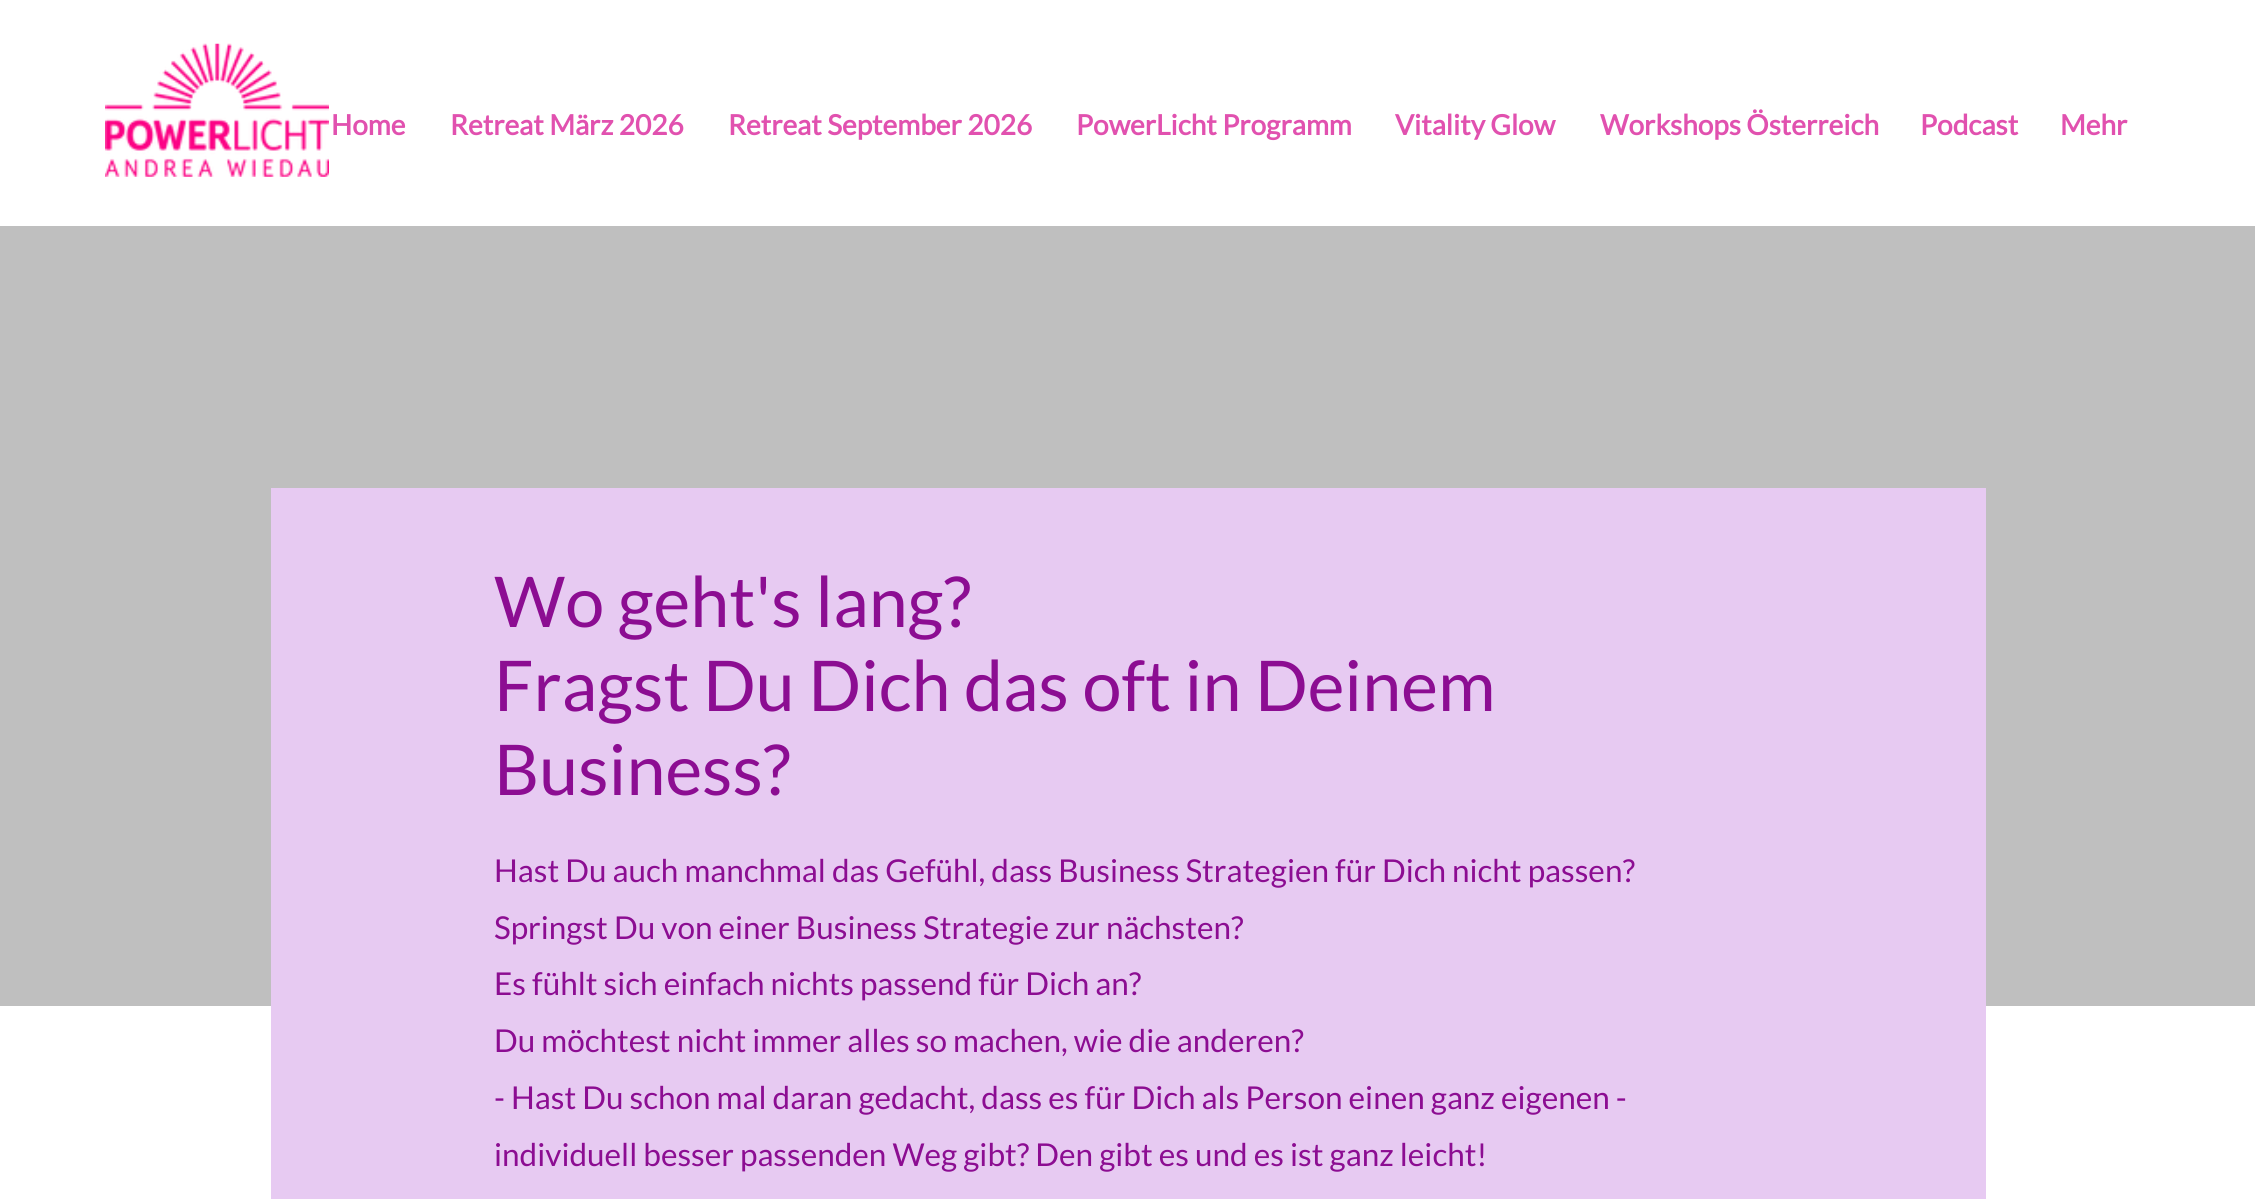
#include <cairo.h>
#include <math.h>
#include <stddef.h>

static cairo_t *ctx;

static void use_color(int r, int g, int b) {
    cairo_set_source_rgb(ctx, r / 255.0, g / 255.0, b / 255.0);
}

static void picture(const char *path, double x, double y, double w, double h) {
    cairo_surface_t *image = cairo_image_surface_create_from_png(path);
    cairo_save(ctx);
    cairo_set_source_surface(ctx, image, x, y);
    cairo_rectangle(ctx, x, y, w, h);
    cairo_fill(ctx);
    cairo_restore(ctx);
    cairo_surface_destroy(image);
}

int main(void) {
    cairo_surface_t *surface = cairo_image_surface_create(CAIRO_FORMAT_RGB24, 2255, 1199);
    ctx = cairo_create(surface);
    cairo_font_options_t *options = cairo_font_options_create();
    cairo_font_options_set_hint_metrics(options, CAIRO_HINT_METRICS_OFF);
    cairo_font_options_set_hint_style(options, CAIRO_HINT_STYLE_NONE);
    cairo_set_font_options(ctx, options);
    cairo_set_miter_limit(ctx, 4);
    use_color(255, 255, 255);
    cairo_paint(ctx);
    picture("img1.png", 105, 43, 224, 134);
    cairo_select_font_face(ctx, "Lato", CAIRO_FONT_SLANT_NORMAL, CAIRO_FONT_WEIGHT_BOLD);
    cairo_set_font_size(ctx, 28);
    use_color(225, 81, 175);
    cairo_move_to(ctx, 331, 135);
    cairo_show_text(ctx, "Home");
    cairo_move_to(ctx, 450, 135);
    cairo_show_text(ctx, "Retreat März 2026");
    cairo_move_to(ctx, 728, 135);
    cairo_show_text(ctx, "Retreat September 2026");
    cairo_move_to(ctx, 1076, 135);
    cairo_show_text(ctx, "PowerLicht Programm");
    cairo_move_to(ctx, 1395, 135);
    cairo_show_text(ctx, "Vitality Glow");
    cairo_move_to(ctx, 1600, 135);
    cairo_show_text(ctx, "Workshops Österreich");
    cairo_move_to(ctx, 1920, 135);
    cairo_show_text(ctx, "Podcast");
    cairo_move_to(ctx, 2060, 135);
    cairo_show_text(ctx, "Mehr");
    use_color(191, 191, 191);
    cairo_rectangle(ctx, 0, 226, 2255, 780);
    cairo_fill(ctx);
    use_color(231, 202, 242);
    cairo_rectangle(ctx, 271, 488, 1715, 711);
    cairo_fill(ctx);
    cairo_select_font_face(ctx, "Lato", CAIRO_FONT_SLANT_NORMAL, CAIRO_FONT_WEIGHT_NORMAL);
    cairo_set_font_size(ctx, 70);
    use_color(140, 13, 146);
    cairo_move_to(ctx, 494, 627);
    cairo_show_text(ctx, "Wo geht's lang?");
    cairo_move_to(ctx, 494, 711);
    cairo_show_text(ctx, "Fragst Du Dich das oft in Deinem");
    cairo_move_to(ctx, 494, 795);
    cairo_show_text(ctx, "Business?");
    cairo_set_font_size(ctx, 31.5);
    cairo_move_to(ctx, 494, 882);
    cairo_show_text(ctx, "Hast Du auch manchmal das Gefühl, dass Business Strategien für Dich nicht passen?");
    cairo_move_to(ctx, 494, 939);
    cairo_show_text(ctx, "Springst Du von einer Business Strategie zur nächsten?");
    cairo_move_to(ctx, 494, 995);
    cairo_show_text(ctx, "Es fühlt sich einfach nichts passend für Dich an?");
    cairo_move_to(ctx, 494, 1052);
    cairo_show_text(ctx, "Du möchtest nicht immer alles so machen, wie die anderen?");
    cairo_move_to(ctx, 494, 1109);
    cairo_show_text(ctx, "- Hast Du schon mal daran gedacht, dass es für Dich als Person einen ganz eigenen -");
    cairo_move_to(ctx, 494, 1166);
    cairo_show_text(ctx, "individuell besser passenden Weg gibt? Den gibt es und es ist ganz leicht!");
    cairo_surface_write_to_png(surface, "result.png");
    cairo_font_options_destroy(options);
    cairo_destroy(ctx);
    cairo_surface_destroy(surface);
    return 0;
}
